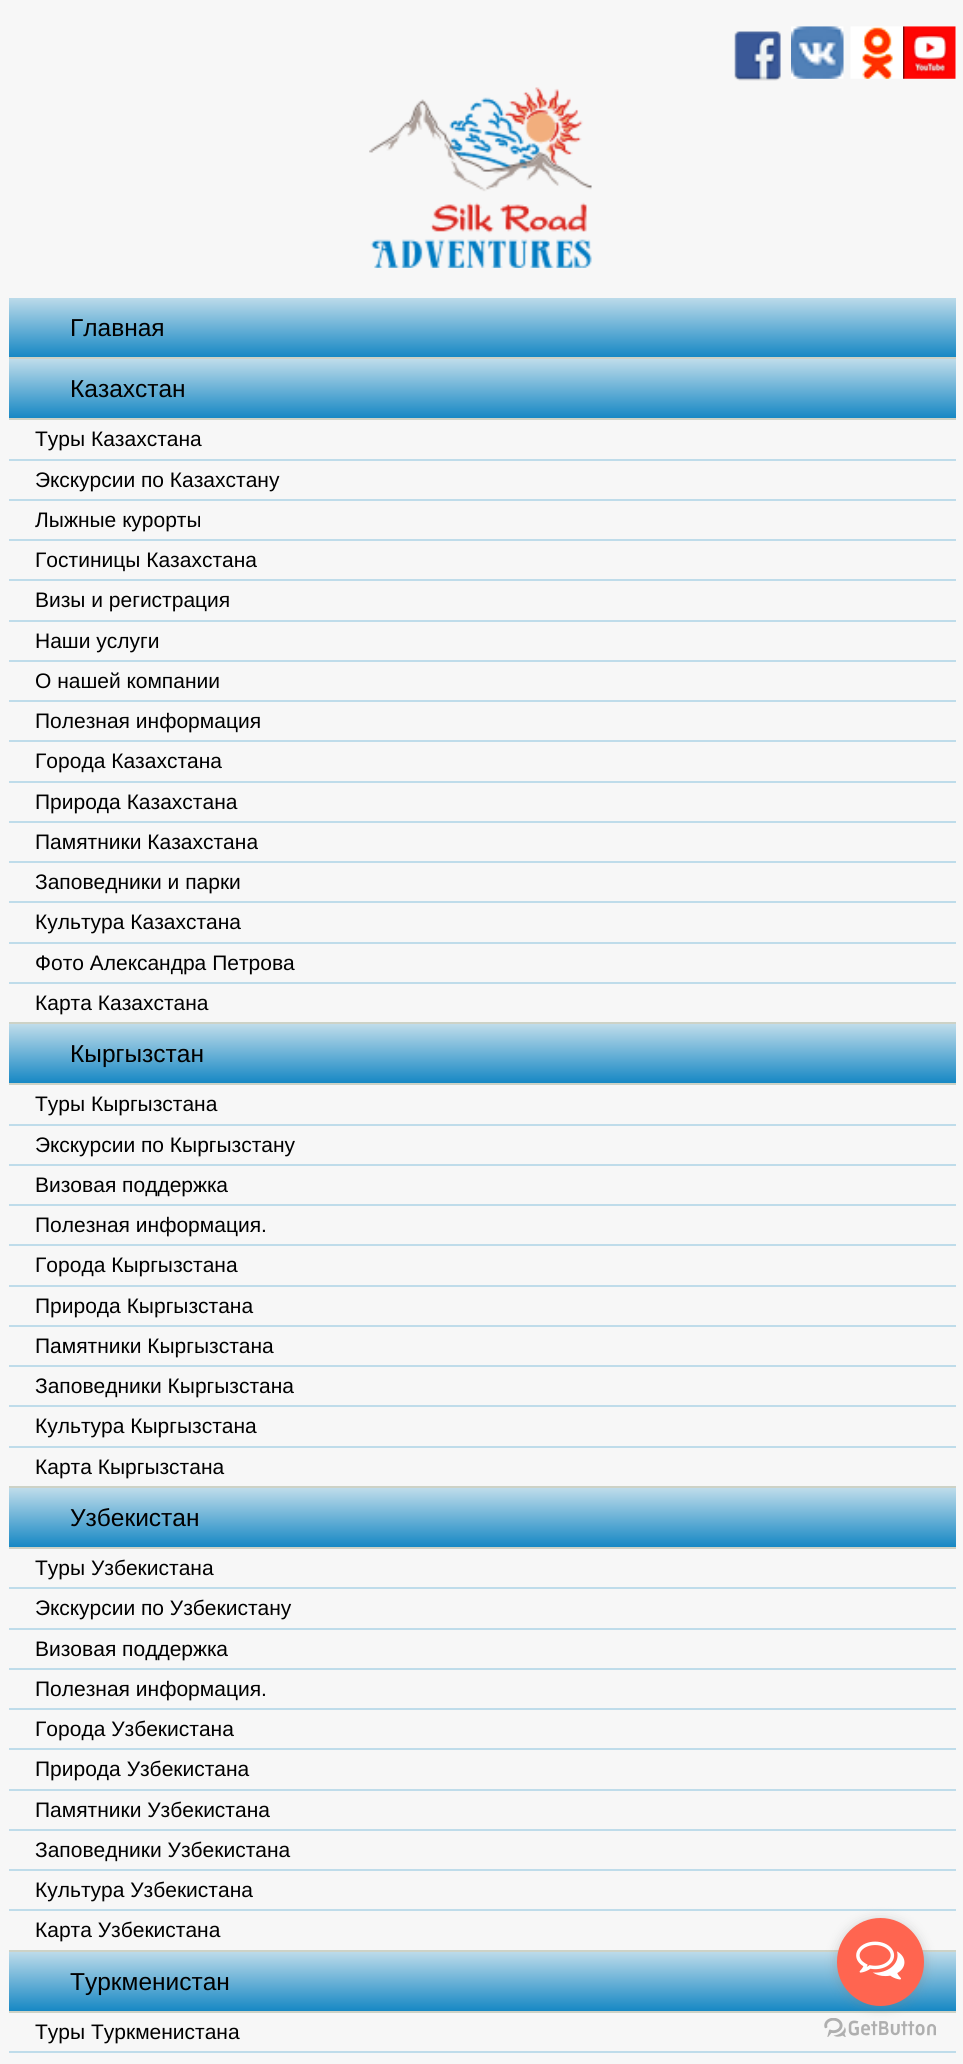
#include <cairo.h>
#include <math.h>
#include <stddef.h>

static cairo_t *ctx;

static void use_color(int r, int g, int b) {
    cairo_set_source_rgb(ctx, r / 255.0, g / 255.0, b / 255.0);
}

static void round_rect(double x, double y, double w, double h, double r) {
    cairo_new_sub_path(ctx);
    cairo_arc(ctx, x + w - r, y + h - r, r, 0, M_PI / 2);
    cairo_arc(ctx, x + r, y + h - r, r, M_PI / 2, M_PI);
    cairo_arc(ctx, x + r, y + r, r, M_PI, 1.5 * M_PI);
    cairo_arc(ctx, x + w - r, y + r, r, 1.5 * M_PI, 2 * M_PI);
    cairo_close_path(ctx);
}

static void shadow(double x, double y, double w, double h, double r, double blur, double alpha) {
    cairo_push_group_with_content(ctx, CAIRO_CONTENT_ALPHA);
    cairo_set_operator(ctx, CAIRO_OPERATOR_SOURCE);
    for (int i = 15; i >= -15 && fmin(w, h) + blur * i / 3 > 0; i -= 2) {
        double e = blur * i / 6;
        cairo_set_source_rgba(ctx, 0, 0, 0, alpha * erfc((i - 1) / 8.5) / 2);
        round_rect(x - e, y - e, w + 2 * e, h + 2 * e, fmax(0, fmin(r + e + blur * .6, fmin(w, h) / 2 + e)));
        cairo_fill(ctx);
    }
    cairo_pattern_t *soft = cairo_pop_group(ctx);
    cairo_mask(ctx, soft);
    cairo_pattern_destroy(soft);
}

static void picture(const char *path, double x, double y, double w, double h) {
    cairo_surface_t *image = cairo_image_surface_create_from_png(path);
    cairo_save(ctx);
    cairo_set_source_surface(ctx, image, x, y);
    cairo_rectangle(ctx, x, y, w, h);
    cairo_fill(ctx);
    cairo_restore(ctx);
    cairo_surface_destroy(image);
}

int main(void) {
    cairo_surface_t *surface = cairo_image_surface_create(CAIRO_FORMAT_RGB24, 963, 2064);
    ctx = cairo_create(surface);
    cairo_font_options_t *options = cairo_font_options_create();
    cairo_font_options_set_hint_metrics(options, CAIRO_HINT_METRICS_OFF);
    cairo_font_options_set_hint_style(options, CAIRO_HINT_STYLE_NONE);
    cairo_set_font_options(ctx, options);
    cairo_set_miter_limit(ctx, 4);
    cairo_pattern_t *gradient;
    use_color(247, 247, 247);
    cairo_paint(ctx);
    picture("img1.png", 734, 31, 47, 50);
    picture("img2.png", 791, 26, 53, 53);
    picture("img3.png", 850, 26, 53, 53);
    picture("img4.png", 903, 26, 53, 53);
    picture("img5.png", 369, 87, 223, 181);
    gradient = cairo_pattern_create_linear(482, 297, 482, 357);
    cairo_pattern_add_color_stop_rgba(gradient, 0, 0.749, 0.863, 0.918, 1);
    cairo_pattern_add_color_stop_rgba(gradient, 1, 0.09, 0.533, 0.769, 1);
    cairo_set_source(ctx, gradient);
    cairo_pattern_destroy(gradient);
    cairo_rectangle(ctx, 9, 298, 947, 59);
    cairo_fill(ctx);
    cairo_select_font_face(ctx, "Liberation Sans", CAIRO_FONT_SLANT_NORMAL, CAIRO_FONT_WEIGHT_NORMAL);
    cairo_set_font_size(ctx, 24.5);
    use_color(0, 0, 0);
    cairo_move_to(ctx, 70, 336);
    cairo_show_text(ctx, "Главная");
    use_color(205, 210, 198);
    cairo_rectangle(ctx, 9, 357, 947, 2);
    cairo_fill(ctx);
    gradient = cairo_pattern_create_linear(482, 359, 482, 418);
    cairo_pattern_add_color_stop_rgba(gradient, 0, 0.749, 0.863, 0.918, 1);
    cairo_pattern_add_color_stop_rgba(gradient, 1, 0.09, 0.533, 0.769, 1);
    cairo_set_source(ctx, gradient);
    cairo_pattern_destroy(gradient);
    cairo_rectangle(ctx, 9, 359, 947, 59);
    cairo_fill(ctx);
    use_color(0, 0, 0);
    cairo_move_to(ctx, 70, 397);
    cairo_show_text(ctx, "Казахстан");
    use_color(205, 210, 198);
    cairo_rectangle(ctx, 9, 418, 947, 2);
    cairo_fill(ctx);
    cairo_set_font_size(ctx, 21);
    use_color(0, 0, 0);
    cairo_move_to(ctx, 35, 446);
    cairo_show_text(ctx, "Туры Казахстана");
    use_color(191, 220, 234);
    cairo_rectangle(ctx, 9, 459, 947, 2);
    cairo_fill(ctx);
    use_color(0, 0, 0);
    cairo_move_to(ctx, 35, 487);
    cairo_show_text(ctx, "Экскурсии по Казахстану");
    use_color(191, 220, 234);
    cairo_rectangle(ctx, 9, 499, 947, 2);
    cairo_fill(ctx);
    use_color(0, 0, 0);
    cairo_move_to(ctx, 35, 527);
    cairo_show_text(ctx, "Лыжные курорты");
    use_color(191, 220, 234);
    cairo_rectangle(ctx, 9, 539, 947, 2);
    cairo_fill(ctx);
    use_color(0, 0, 0);
    cairo_move_to(ctx, 35, 567);
    cairo_show_text(ctx, "Гостиницы Казахстана");
    use_color(191, 220, 234);
    cairo_rectangle(ctx, 9, 579, 947, 2);
    cairo_fill(ctx);
    use_color(0, 0, 0);
    cairo_move_to(ctx, 35, 607);
    cairo_show_text(ctx, "Визы и регистрация");
    use_color(191, 220, 234);
    cairo_rectangle(ctx, 9, 620, 947, 2);
    cairo_fill(ctx);
    use_color(0, 0, 0);
    cairo_move_to(ctx, 35, 648);
    cairo_show_text(ctx, "Наши услуги");
    use_color(191, 220, 234);
    cairo_rectangle(ctx, 9, 660, 947, 2);
    cairo_fill(ctx);
    use_color(0, 0, 0);
    cairo_move_to(ctx, 35, 688);
    cairo_show_text(ctx, "О нашей компании");
    use_color(191, 220, 234);
    cairo_rectangle(ctx, 9, 700, 947, 2);
    cairo_fill(ctx);
    use_color(0, 0, 0);
    cairo_move_to(ctx, 35, 728);
    cairo_show_text(ctx, "Полезная информация");
    use_color(191, 220, 234);
    cairo_rectangle(ctx, 9, 740, 947, 2);
    cairo_fill(ctx);
    use_color(0, 0, 0);
    cairo_move_to(ctx, 35, 768);
    cairo_show_text(ctx, "Города Казахстана");
    use_color(191, 220, 234);
    cairo_rectangle(ctx, 9, 781, 947, 2);
    cairo_fill(ctx);
    use_color(0, 0, 0);
    cairo_move_to(ctx, 35, 809);
    cairo_show_text(ctx, "Природа Казахстана");
    use_color(191, 220, 234);
    cairo_rectangle(ctx, 9, 821, 947, 2);
    cairo_fill(ctx);
    use_color(0, 0, 0);
    cairo_move_to(ctx, 35, 849);
    cairo_show_text(ctx, "Памятники Казахстана");
    use_color(191, 220, 234);
    cairo_rectangle(ctx, 9, 861, 947, 2);
    cairo_fill(ctx);
    use_color(0, 0, 0);
    cairo_move_to(ctx, 35, 889);
    cairo_show_text(ctx, "Заповедники и парки");
    use_color(191, 220, 234);
    cairo_rectangle(ctx, 9, 901, 947, 2);
    cairo_fill(ctx);
    use_color(0, 0, 0);
    cairo_move_to(ctx, 35, 929);
    cairo_show_text(ctx, "Культура Казахстана");
    use_color(191, 220, 234);
    cairo_rectangle(ctx, 9, 942, 947, 2);
    cairo_fill(ctx);
    use_color(0, 0, 0);
    cairo_move_to(ctx, 35, 970);
    cairo_show_text(ctx, "Фото Александра Петрова");
    use_color(191, 220, 234);
    cairo_rectangle(ctx, 9, 982, 947, 2);
    cairo_fill(ctx);
    use_color(0, 0, 0);
    cairo_move_to(ctx, 35, 1010);
    cairo_show_text(ctx, "Карта Казахстана");
    use_color(205, 210, 198);
    cairo_rectangle(ctx, 9, 1022, 947, 2);
    cairo_fill(ctx);
    gradient = cairo_pattern_create_linear(482, 1024, 482, 1083);
    cairo_pattern_add_color_stop_rgba(gradient, 0, 0.749, 0.863, 0.918, 1);
    cairo_pattern_add_color_stop_rgba(gradient, 1, 0.09, 0.533, 0.769, 1);
    cairo_set_source(ctx, gradient);
    cairo_pattern_destroy(gradient);
    cairo_rectangle(ctx, 9, 1024, 947, 59);
    cairo_fill(ctx);
    cairo_set_font_size(ctx, 24.5);
    use_color(0, 0, 0);
    cairo_move_to(ctx, 70, 1062);
    cairo_show_text(ctx, "Кыргызстан");
    use_color(205, 210, 198);
    cairo_rectangle(ctx, 9, 1083, 947, 2);
    cairo_fill(ctx);
    cairo_set_font_size(ctx, 21);
    use_color(0, 0, 0);
    cairo_move_to(ctx, 35, 1111);
    cairo_show_text(ctx, "Туры Кыргызстана");
    use_color(191, 220, 234);
    cairo_rectangle(ctx, 9, 1124, 947, 2);
    cairo_fill(ctx);
    use_color(0, 0, 0);
    cairo_move_to(ctx, 35, 1152);
    cairo_show_text(ctx, "Экскурсии по Кыргызстану");
    use_color(191, 220, 234);
    cairo_rectangle(ctx, 9, 1164, 947, 2);
    cairo_fill(ctx);
    use_color(0, 0, 0);
    cairo_move_to(ctx, 35, 1192);
    cairo_show_text(ctx, "Визовая поддержка");
    use_color(191, 220, 234);
    cairo_rectangle(ctx, 9, 1204, 947, 2);
    cairo_fill(ctx);
    use_color(0, 0, 0);
    cairo_move_to(ctx, 35, 1232);
    cairo_show_text(ctx, "Полезная информация.");
    use_color(191, 220, 234);
    cairo_rectangle(ctx, 9, 1244, 947, 2);
    cairo_fill(ctx);
    use_color(0, 0, 0);
    cairo_move_to(ctx, 35, 1272);
    cairo_show_text(ctx, "Города Кыргызстана");
    use_color(191, 220, 234);
    cairo_rectangle(ctx, 9, 1285, 947, 2);
    cairo_fill(ctx);
    use_color(0, 0, 0);
    cairo_move_to(ctx, 35, 1313);
    cairo_show_text(ctx, "Природа Кыргызстана");
    use_color(191, 220, 234);
    cairo_rectangle(ctx, 9, 1325, 947, 2);
    cairo_fill(ctx);
    use_color(0, 0, 0);
    cairo_move_to(ctx, 35, 1353);
    cairo_show_text(ctx, "Памятники Кыргызстана");
    use_color(191, 220, 234);
    cairo_rectangle(ctx, 9, 1365, 947, 2);
    cairo_fill(ctx);
    use_color(0, 0, 0);
    cairo_move_to(ctx, 35, 1393);
    cairo_show_text(ctx, "Заповедники Кыргызстана");
    use_color(191, 220, 234);
    cairo_rectangle(ctx, 9, 1405, 947, 2);
    cairo_fill(ctx);
    use_color(0, 0, 0);
    cairo_move_to(ctx, 35, 1433);
    cairo_show_text(ctx, "Культура Кыргызстана");
    use_color(191, 220, 234);
    cairo_rectangle(ctx, 9, 1446, 947, 2);
    cairo_fill(ctx);
    use_color(0, 0, 0);
    cairo_move_to(ctx, 35, 1474);
    cairo_show_text(ctx, "Карта Кыргызстана");
    use_color(205, 210, 198);
    cairo_rectangle(ctx, 9, 1486, 947, 2);
    cairo_fill(ctx);
    gradient = cairo_pattern_create_linear(482, 1488, 482, 1547);
    cairo_pattern_add_color_stop_rgba(gradient, 0, 0.749, 0.863, 0.918, 1);
    cairo_pattern_add_color_stop_rgba(gradient, 1, 0.09, 0.533, 0.769, 1);
    cairo_set_source(ctx, gradient);
    cairo_pattern_destroy(gradient);
    cairo_rectangle(ctx, 9, 1488, 947, 59);
    cairo_fill(ctx);
    cairo_set_font_size(ctx, 24.5);
    use_color(0, 0, 0);
    cairo_move_to(ctx, 70, 1526);
    cairo_show_text(ctx, "Узбекистан");
    use_color(205, 210, 198);
    cairo_rectangle(ctx, 9, 1547, 947, 2);
    cairo_fill(ctx);
    cairo_set_font_size(ctx, 21);
    use_color(0, 0, 0);
    cairo_move_to(ctx, 35, 1575);
    cairo_show_text(ctx, "Туры Узбекистана");
    use_color(191, 220, 234);
    cairo_rectangle(ctx, 9, 1587, 947, 2);
    cairo_fill(ctx);
    use_color(0, 0, 0);
    cairo_move_to(ctx, 35, 1615);
    cairo_show_text(ctx, "Экскурсии по Узбекистану");
    use_color(191, 220, 234);
    cairo_rectangle(ctx, 9, 1628, 947, 2);
    cairo_fill(ctx);
    use_color(0, 0, 0);
    cairo_move_to(ctx, 35, 1656);
    cairo_show_text(ctx, "Визовая поддержка");
    use_color(191, 220, 234);
    cairo_rectangle(ctx, 9, 1668, 947, 2);
    cairo_fill(ctx);
    use_color(0, 0, 0);
    cairo_move_to(ctx, 35, 1696);
    cairo_show_text(ctx, "Полезная информация.");
    use_color(191, 220, 234);
    cairo_rectangle(ctx, 9, 1708, 947, 2);
    cairo_fill(ctx);
    use_color(0, 0, 0);
    cairo_move_to(ctx, 35, 1736);
    cairo_show_text(ctx, "Города Узбекистана");
    use_color(191, 220, 234);
    cairo_rectangle(ctx, 9, 1748, 947, 2);
    cairo_fill(ctx);
    use_color(0, 0, 0);
    cairo_move_to(ctx, 35, 1776);
    cairo_show_text(ctx, "Природа Узбекистана");
    use_color(191, 220, 234);
    cairo_rectangle(ctx, 9, 1789, 947, 2);
    cairo_fill(ctx);
    use_color(0, 0, 0);
    cairo_move_to(ctx, 35, 1817);
    cairo_show_text(ctx, "Памятники Узбекистана");
    use_color(191, 220, 234);
    cairo_rectangle(ctx, 9, 1829, 947, 2);
    cairo_fill(ctx);
    use_color(0, 0, 0);
    cairo_move_to(ctx, 35, 1857);
    cairo_show_text(ctx, "Заповедники Узбекистана");
    use_color(191, 220, 234);
    cairo_rectangle(ctx, 9, 1869, 947, 2);
    cairo_fill(ctx);
    use_color(0, 0, 0);
    cairo_move_to(ctx, 35, 1897);
    cairo_show_text(ctx, "Культура Узбекистана");
    use_color(191, 220, 234);
    cairo_rectangle(ctx, 9, 1909, 947, 2);
    cairo_fill(ctx);
    use_color(0, 0, 0);
    cairo_move_to(ctx, 35, 1937);
    cairo_show_text(ctx, "Карта Узбекистана");
    use_color(205, 210, 198);
    cairo_rectangle(ctx, 9, 1950, 947, 2);
    cairo_fill(ctx);
    gradient = cairo_pattern_create_linear(482, 1951, 482, 2011);
    cairo_pattern_add_color_stop_rgba(gradient, 0, 0.749, 0.863, 0.918, 1);
    cairo_pattern_add_color_stop_rgba(gradient, 1, 0.09, 0.533, 0.769, 1);
    cairo_set_source(ctx, gradient);
    cairo_pattern_destroy(gradient);
    cairo_rectangle(ctx, 9, 1952, 947, 59);
    cairo_fill(ctx);
    cairo_set_font_size(ctx, 24.5);
    use_color(0, 0, 0);
    cairo_move_to(ctx, 70, 1990);
    cairo_show_text(ctx, "Туркменистан");
    use_color(205, 210, 198);
    cairo_rectangle(ctx, 9, 2011, 947, 2);
    cairo_fill(ctx);
    cairo_set_font_size(ctx, 21);
    use_color(0, 0, 0);
    cairo_move_to(ctx, 35, 2039);
    cairo_show_text(ctx, "Туры Туркменистана");
    use_color(191, 220, 234);
    cairo_rectangle(ctx, 9, 2051, 947, 2);
    cairo_fill(ctx);
    picture("img7.png", 824, 2018, 112, 19);
    use_color(136, 136, 136);
    shadow(837, 1920, 87, 87, 43.5, 6, 0.4);
    use_color(255, 101, 80);
    round_rect(837, 1918, 87, 88, 43.5);
    cairo_fill(ctx);
    picture("img6.png", 856, 1941, 49, 39);
    cairo_surface_write_to_png(surface, "result.png");
    cairo_font_options_destroy(options);
    cairo_destroy(ctx);
    cairo_surface_destroy(surface);
    return 0;
}
